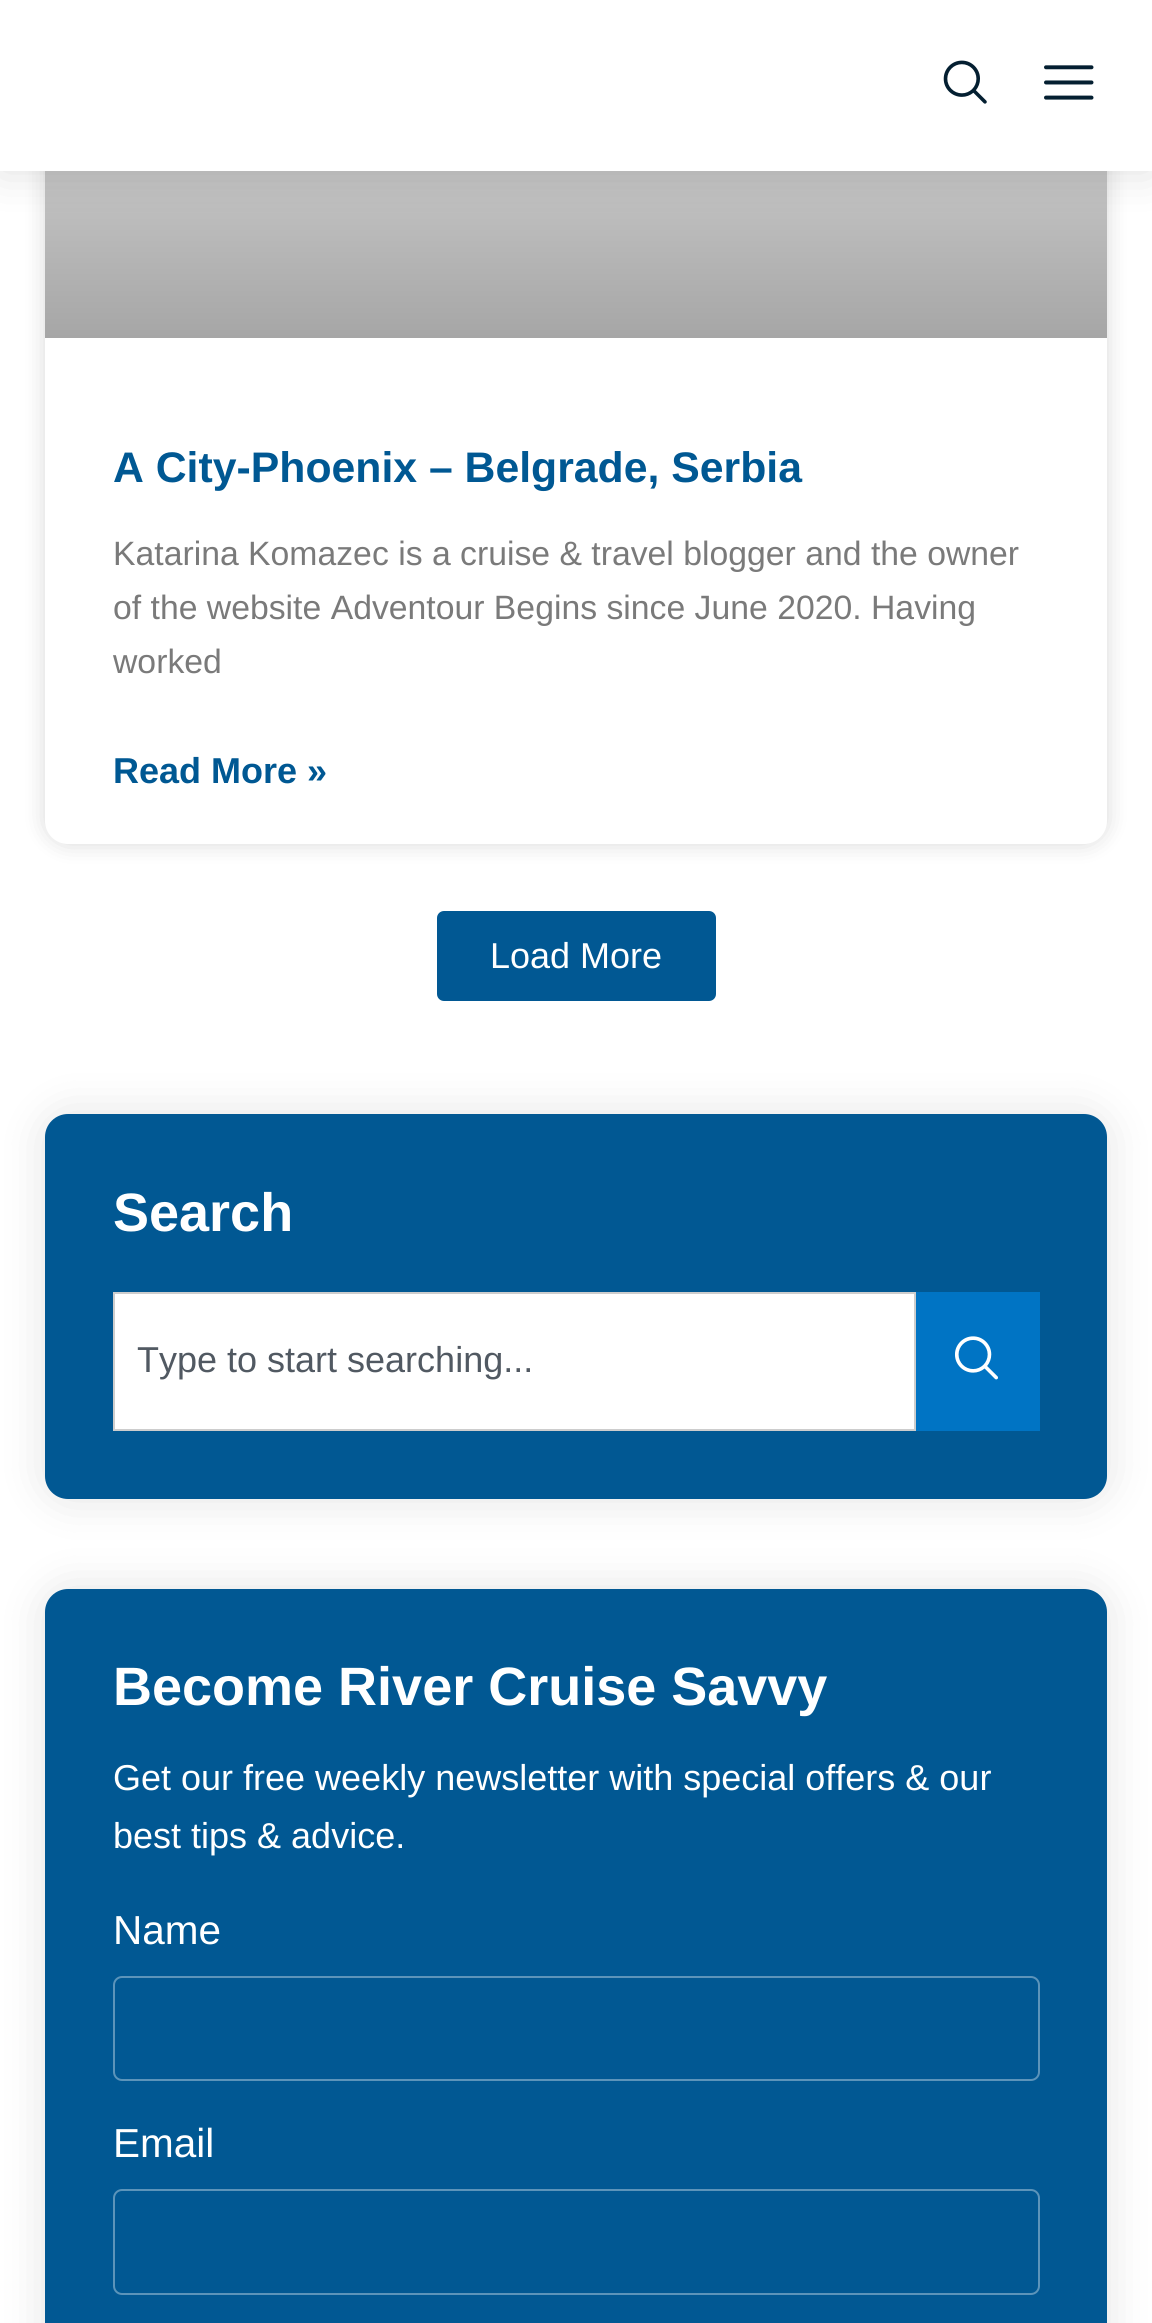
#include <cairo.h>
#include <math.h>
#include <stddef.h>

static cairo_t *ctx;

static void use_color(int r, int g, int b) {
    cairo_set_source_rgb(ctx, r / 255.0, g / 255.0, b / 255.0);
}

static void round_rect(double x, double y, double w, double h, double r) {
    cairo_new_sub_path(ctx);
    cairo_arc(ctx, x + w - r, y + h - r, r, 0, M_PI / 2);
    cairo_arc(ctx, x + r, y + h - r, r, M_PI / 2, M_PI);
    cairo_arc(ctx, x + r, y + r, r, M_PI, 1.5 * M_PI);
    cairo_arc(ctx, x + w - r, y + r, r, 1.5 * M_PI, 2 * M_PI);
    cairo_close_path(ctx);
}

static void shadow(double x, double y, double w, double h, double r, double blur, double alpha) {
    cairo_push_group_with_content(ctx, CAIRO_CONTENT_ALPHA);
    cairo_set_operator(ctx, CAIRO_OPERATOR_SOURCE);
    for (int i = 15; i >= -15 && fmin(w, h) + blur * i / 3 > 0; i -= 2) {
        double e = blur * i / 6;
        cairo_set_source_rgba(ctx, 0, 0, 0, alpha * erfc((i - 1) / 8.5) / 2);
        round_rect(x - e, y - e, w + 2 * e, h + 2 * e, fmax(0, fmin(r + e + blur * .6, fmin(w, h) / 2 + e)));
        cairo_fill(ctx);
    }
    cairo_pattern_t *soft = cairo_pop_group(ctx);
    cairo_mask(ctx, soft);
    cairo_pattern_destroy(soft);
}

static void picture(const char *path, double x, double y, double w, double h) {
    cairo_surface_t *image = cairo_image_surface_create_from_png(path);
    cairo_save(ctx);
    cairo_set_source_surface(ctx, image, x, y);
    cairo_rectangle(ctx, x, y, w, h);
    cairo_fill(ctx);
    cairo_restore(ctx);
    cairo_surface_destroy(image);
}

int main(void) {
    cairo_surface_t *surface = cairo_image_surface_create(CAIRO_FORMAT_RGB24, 1152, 2323);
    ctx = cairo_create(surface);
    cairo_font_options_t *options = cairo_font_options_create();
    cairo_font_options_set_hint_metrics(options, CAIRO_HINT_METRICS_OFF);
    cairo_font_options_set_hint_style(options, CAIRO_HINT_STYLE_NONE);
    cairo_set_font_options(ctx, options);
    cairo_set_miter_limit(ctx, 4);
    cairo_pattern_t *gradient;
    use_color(255, 255, 255);
    cairo_paint(ctx);
    use_color(0, 0, 0);
    shadow(45, -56, 1062, 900, 23, 11, 0.15);
    use_color(255, 255, 255);
    round_rect(45, -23, 1062, 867, 23);
    cairo_fill(ctx);
    gradient = cairo_pattern_create_linear(576, 338, 576, -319);
    cairo_pattern_add_color_stop_rgba(gradient, 0, 0.651, 0.651, 0.651, 1);
    cairo_pattern_add_color_stop_rgba(gradient, 0.75, 1, 1, 1, 1);
    cairo_set_source(ctx, gradient);
    cairo_pattern_destroy(gradient);
    cairo_rectangle(ctx, 45, 171, 1062, 167);
    cairo_fill(ctx);
    use_color(0, 0, 0);
    shadow(0, 0, 1152, 171, 0, 22.5, 0.13);
    use_color(255, 255, 255);
    cairo_rectangle(ctx, 0, 0, 1152, 171);
    cairo_fill(ctx);
    picture("img1.png", 943, 60, 44, 44);
    picture("img2.png", 1044, 65, 50, 35);
    cairo_select_font_face(ctx, "Liberation Sans", CAIRO_FONT_SLANT_NORMAL, CAIRO_FONT_WEIGHT_BOLD);
    cairo_set_font_size(ctx, 42.75);
    use_color(0, 88, 147);
    cairo_move_to(ctx, 113, 482);
    cairo_show_text(ctx, "A City-Phoenix – Belgrade, Serbia");
    cairo_select_font_face(ctx, "Liberation Sans", CAIRO_FONT_SLANT_NORMAL, CAIRO_FONT_WEIGHT_NORMAL);
    cairo_set_font_size(ctx, 33.75);
    use_color(122, 122, 122);
    cairo_move_to(ctx, 113, 565);
    cairo_show_text(ctx, "Katarina Komazec is a cruise & travel blogger and the owner");
    cairo_move_to(ctx, 113, 619);
    cairo_show_text(ctx, "of the website Adventour Begins since June 2020. Having");
    cairo_move_to(ctx, 113, 673);
    cairo_show_text(ctx, "worked");
    cairo_select_font_face(ctx, "Liberation Sans", CAIRO_FONT_SLANT_NORMAL, CAIRO_FONT_WEIGHT_BOLD);
    cairo_set_font_size(ctx, 36);
    use_color(0, 88, 147);
    cairo_move_to(ctx, 113, 783);
    cairo_show_text(ctx, "Read More »");
    use_color(1, 88, 147);
    round_rect(437, 911, 279, 90, 7);
    cairo_fill(ctx);
    cairo_select_font_face(ctx, "Liberation Sans", CAIRO_FONT_SLANT_NORMAL, CAIRO_FONT_WEIGHT_NORMAL);
    use_color(255, 255, 255);
    cairo_move_to(ctx, 490, 968);
    cairo_show_text(ctx, "Load More");
    use_color(0, 0, 0);
    shadow(45, 1114, 1062, 385, 23, 22.5, 0.11);
    use_color(1, 88, 147);
    round_rect(45, 1114, 1062, 385, 23);
    cairo_fill(ctx);
    cairo_select_font_face(ctx, "Liberation Sans", CAIRO_FONT_SLANT_NORMAL, CAIRO_FONT_WEIGHT_BOLD);
    cairo_set_font_size(ctx, 54);
    use_color(255, 255, 255);
    cairo_move_to(ctx, 113, 1231);
    cairo_show_text(ctx, "Search");
    cairo_rectangle(ctx, 114, 1293, 801, 137);
    cairo_fill_preserve(ctx);
    use_color(205, 205, 205);
    cairo_stroke(ctx);
    cairo_select_font_face(ctx, "Liberation Sans", CAIRO_FONT_SLANT_NORMAL, CAIRO_FONT_WEIGHT_NORMAL);
    cairo_set_font_size(ctx, 36);
    use_color(81, 89, 98);
    cairo_move_to(ctx, 137, 1372);
    cairo_show_text(ctx, "Type to start searching...");
    use_color(0, 116, 196);
    cairo_rectangle(ctx, 916, 1292, 124, 139);
    cairo_fill(ctx);
    picture("img3.png", 955, 1336, 43, 44);
    use_color(0, 0, 0);
    shadow(45, 1589, 1062, 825, 23, 22.5, 0.11);
    use_color(1, 88, 147);
    round_rect(45, 1589, 1062, 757, 23);
    cairo_fill(ctx);
    cairo_select_font_face(ctx, "Liberation Sans", CAIRO_FONT_SLANT_NORMAL, CAIRO_FONT_WEIGHT_BOLD);
    cairo_set_font_size(ctx, 54);
    use_color(255, 255, 255);
    cairo_move_to(ctx, 113, 1705);
    cairo_show_text(ctx, "Become River Cruise Savvy");
    cairo_select_font_face(ctx, "Liberation Sans", CAIRO_FONT_SLANT_NORMAL, CAIRO_FONT_WEIGHT_NORMAL);
    cairo_set_font_size(ctx, 36);
    cairo_move_to(ctx, 113, 1790);
    cairo_show_text(ctx, "Get our free weekly newsletter with special offers & our");
    cairo_move_to(ctx, 113, 1848);
    cairo_show_text(ctx, "best tips & advice.");
    cairo_set_font_size(ctx, 40.5);
    cairo_move_to(ctx, 113, 1944);
    cairo_show_text(ctx, "Name");
    round_rect(114, 1977, 925, 103, 8);
    use_color(92, 148, 186);
    cairo_stroke(ctx);
    use_color(255, 255, 255);
    cairo_move_to(ctx, 113, 2157);
    cairo_show_text(ctx, "Email");
    round_rect(114, 2190, 925, 104, 8);
    use_color(92, 148, 186);
    cairo_stroke(ctx);
    cairo_surface_write_to_png(surface, "result.png");
    cairo_font_options_destroy(options);
    cairo_destroy(ctx);
    cairo_surface_destroy(surface);
    return 0;
}
